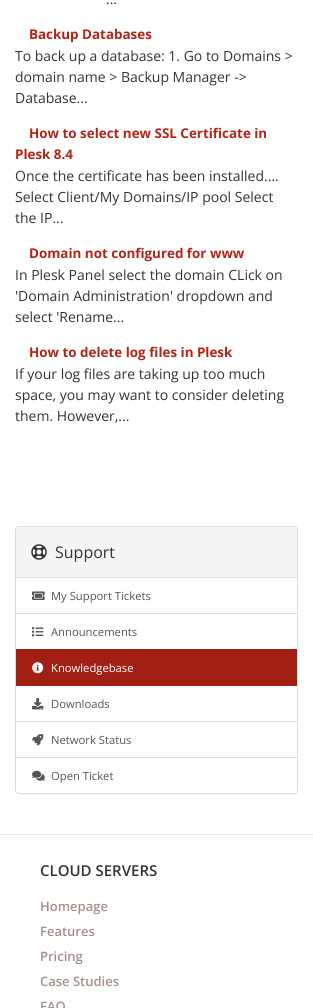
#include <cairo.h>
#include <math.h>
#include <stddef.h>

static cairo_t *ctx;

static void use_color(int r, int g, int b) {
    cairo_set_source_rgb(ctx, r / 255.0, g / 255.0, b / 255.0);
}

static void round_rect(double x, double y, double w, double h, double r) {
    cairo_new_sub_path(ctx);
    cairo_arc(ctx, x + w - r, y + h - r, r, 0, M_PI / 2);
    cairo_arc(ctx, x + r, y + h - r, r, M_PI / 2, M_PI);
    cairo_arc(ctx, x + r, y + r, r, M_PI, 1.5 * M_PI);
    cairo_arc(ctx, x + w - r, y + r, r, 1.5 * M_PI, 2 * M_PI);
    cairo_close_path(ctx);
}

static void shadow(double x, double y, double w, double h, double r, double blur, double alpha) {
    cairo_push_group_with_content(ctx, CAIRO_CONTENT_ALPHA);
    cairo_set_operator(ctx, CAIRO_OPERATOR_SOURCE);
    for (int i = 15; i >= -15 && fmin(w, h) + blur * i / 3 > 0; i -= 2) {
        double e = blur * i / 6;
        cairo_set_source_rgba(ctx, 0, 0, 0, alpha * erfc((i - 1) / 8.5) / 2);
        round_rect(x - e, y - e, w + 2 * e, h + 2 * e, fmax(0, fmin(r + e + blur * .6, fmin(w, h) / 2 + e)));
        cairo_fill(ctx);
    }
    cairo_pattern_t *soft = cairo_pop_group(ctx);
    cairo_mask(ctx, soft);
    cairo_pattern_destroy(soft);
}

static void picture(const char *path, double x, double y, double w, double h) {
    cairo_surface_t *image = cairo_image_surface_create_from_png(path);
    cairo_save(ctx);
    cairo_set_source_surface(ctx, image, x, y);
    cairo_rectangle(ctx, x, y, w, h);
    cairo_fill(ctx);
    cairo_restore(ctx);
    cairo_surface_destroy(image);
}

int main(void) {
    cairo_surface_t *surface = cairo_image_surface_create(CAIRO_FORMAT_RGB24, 313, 1008);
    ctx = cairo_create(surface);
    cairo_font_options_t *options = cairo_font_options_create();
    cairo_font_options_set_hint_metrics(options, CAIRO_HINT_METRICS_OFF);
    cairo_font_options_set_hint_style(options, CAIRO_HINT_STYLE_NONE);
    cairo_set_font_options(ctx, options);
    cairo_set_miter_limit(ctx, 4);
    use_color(255, 255, 255);
    cairo_paint(ctx);
    cairo_select_font_face(ctx, "Open Sans", CAIRO_FONT_SLANT_NORMAL, CAIRO_FONT_WEIGHT_NORMAL);
    cairo_set_font_size(ctx, 14);
    use_color(51, 51, 51);
    cairo_move_to(ctx, 106, 4);
    cairo_show_text(ctx, "...");
    cairo_select_font_face(ctx, "Open Sans", CAIRO_FONT_SLANT_NORMAL, CAIRO_FONT_WEIGHT_BOLD);
    cairo_set_font_size(ctx, 13.4);
    use_color(179, 35, 24);
    cairo_move_to(ctx, 29, 39);
    cairo_show_text(ctx, "Backup Databases");
    cairo_select_font_face(ctx, "Open Sans", CAIRO_FONT_SLANT_NORMAL, CAIRO_FONT_WEIGHT_NORMAL);
    cairo_set_font_size(ctx, 14);
    use_color(51, 51, 51);
    cairo_move_to(ctx, 15, 61);
    cairo_show_text(ctx, "To back up a database: 1. Go to Domains >");
    cairo_move_to(ctx, 15, 82);
    cairo_show_text(ctx, "domain name > Backup Manager ->");
    cairo_move_to(ctx, 15, 103);
    cairo_show_text(ctx, "Database...");
    cairo_select_font_face(ctx, "Open Sans", CAIRO_FONT_SLANT_NORMAL, CAIRO_FONT_WEIGHT_BOLD);
    cairo_set_font_size(ctx, 13.4);
    use_color(179, 35, 24);
    cairo_move_to(ctx, 29, 138);
    cairo_show_text(ctx, "How to select new SSL Certificate in");
    cairo_move_to(ctx, 15, 159);
    cairo_show_text(ctx, "Plesk 8.4");
    cairo_select_font_face(ctx, "Open Sans", CAIRO_FONT_SLANT_NORMAL, CAIRO_FONT_WEIGHT_NORMAL);
    cairo_set_font_size(ctx, 14);
    use_color(51, 51, 51);
    cairo_move_to(ctx, 15, 181);
    cairo_show_text(ctx, "Once the certificate has been installed....");
    cairo_move_to(ctx, 15, 202);
    cairo_show_text(ctx, "Select Client/My Domains/IP pool Select");
    cairo_move_to(ctx, 15, 223);
    cairo_show_text(ctx, "the IP...");
    cairo_select_font_face(ctx, "Open Sans", CAIRO_FONT_SLANT_NORMAL, CAIRO_FONT_WEIGHT_BOLD);
    cairo_set_font_size(ctx, 13.4);
    use_color(179, 35, 24);
    cairo_move_to(ctx, 29, 258);
    cairo_show_text(ctx, "Domain not configured for www");
    cairo_select_font_face(ctx, "Open Sans", CAIRO_FONT_SLANT_NORMAL, CAIRO_FONT_WEIGHT_NORMAL);
    cairo_set_font_size(ctx, 14);
    use_color(51, 51, 51);
    cairo_move_to(ctx, 15, 280);
    cairo_show_text(ctx, "In Plesk Panel select the domain CLick on");
    cairo_move_to(ctx, 15, 301);
    cairo_show_text(ctx, "'Domain Administration' dropdown and");
    cairo_move_to(ctx, 15, 322);
    cairo_show_text(ctx, "select 'Rename...");
    cairo_select_font_face(ctx, "Open Sans", CAIRO_FONT_SLANT_NORMAL, CAIRO_FONT_WEIGHT_BOLD);
    cairo_set_font_size(ctx, 13.4);
    use_color(179, 35, 24);
    cairo_move_to(ctx, 29, 357);
    cairo_show_text(ctx, "How to delete log files in Plesk");
    cairo_select_font_face(ctx, "Open Sans", CAIRO_FONT_SLANT_NORMAL, CAIRO_FONT_WEIGHT_NORMAL);
    cairo_set_font_size(ctx, 14);
    use_color(51, 51, 51);
    cairo_move_to(ctx, 15, 379);
    cairo_show_text(ctx, "If your log files are taking up too much");
    cairo_move_to(ctx, 15, 400);
    cairo_show_text(ctx, "space, you may want to consider deleting");
    cairo_move_to(ctx, 15, 421);
    cairo_show_text(ctx, "them. However,...");
    use_color(0, 0, 0);
    shadow(15, 527, 283, 268, 4, 0.5, 0.05);
    use_color(255, 255, 255);
    round_rect(15.5, 526.5, 282, 267, 3.5);
    cairo_fill_preserve(ctx);
    use_color(221, 221, 221);
    cairo_set_line_width(ctx, 1);
    cairo_stroke(ctx);
    use_color(245, 245, 245);
    cairo_new_path(ctx);
    cairo_move_to(ctx, 19, 527);
    cairo_line_to(ctx, 294, 527);
    cairo_curve_to(ctx, 295.5, 527, 297, 528.5, 297, 530);
    cairo_line_to(ctx, 297, 578);
    cairo_line_to(ctx, 16, 578);
    cairo_line_to(ctx, 16, 530);
    cairo_curve_to(ctx, 16, 528.5, 17.5, 527, 19, 527);
    cairo_close_path(ctx);
    cairo_fill(ctx);
    use_color(221, 221, 221);
    cairo_rectangle(ctx, 16, 577, 281, 1);
    cairo_fill(ctx);
    picture("img1.png", 31, 544, 16, 16);
    cairo_set_font_size(ctx, 16);
    use_color(51, 51, 51);
    cairo_move_to(ctx, 55, 558);
    cairo_show_text(ctx, "Support");
    use_color(221, 221, 221);
    cairo_rectangle(ctx, 16, 613, 281, 1);
    cairo_fill(ctx);
    picture("img2.png", 32, 591, 13, 9);
    cairo_set_font_size(ctx, 11.25);
    use_color(85, 85, 85);
    cairo_move_to(ctx, 51, 600);
    cairo_show_text(ctx, "My Support Tickets");
    picture("img3.png", 32, 627, 12, 10);
    cairo_move_to(ctx, 51, 636);
    cairo_show_text(ctx, "Announcements");
    use_color(161, 31, 21);
    cairo_rectangle(ctx, 16, 649, 281, 37);
    cairo_fill(ctx);
    picture("img4.png", 32, 662, 12, 12);
    use_color(255, 255, 255);
    cairo_move_to(ctx, 51, 672);
    cairo_show_text(ctx, "Knowledgebase");
    use_color(221, 221, 221);
    cairo_rectangle(ctx, 16, 721, 281, 1);
    cairo_fill(ctx);
    picture("img5.png", 32, 698, 12, 12);
    use_color(85, 85, 85);
    cairo_move_to(ctx, 51, 708);
    cairo_show_text(ctx, "Downloads");
    picture("img6.png", 32, 734, 12, 12);
    cairo_move_to(ctx, 51, 744);
    cairo_show_text(ctx, "Network Status");
    use_color(255, 255, 255);
    cairo_new_path(ctx);
    cairo_move_to(ctx, 16, 757);
    cairo_line_to(ctx, 297, 757);
    cairo_line_to(ctx, 297, 790);
    cairo_curve_to(ctx, 297, 791.5, 295.5, 793, 294, 793);
    cairo_line_to(ctx, 19, 793);
    cairo_curve_to(ctx, 17.5, 793, 16, 791.5, 16, 790);
    cairo_close_path(ctx);
    cairo_fill(ctx);
    use_color(221, 221, 221);
    cairo_rectangle(ctx, 16, 757, 281, 1);
    cairo_fill(ctx);
    picture("img7.png", 32, 770, 13, 11);
    use_color(85, 85, 85);
    cairo_move_to(ctx, 51, 780);
    cairo_show_text(ctx, "Open Ticket");
    use_color(233, 233, 233);
    cairo_rectangle(ctx, 0, 834, 313, 1);
    cairo_fill(ctx);
    cairo_select_font_face(ctx, "Open Sans SemiBold", CAIRO_FONT_SLANT_NORMAL, CAIRO_FONT_WEIGHT_NORMAL);
    cairo_set_font_size(ctx, 15);
    use_color(51, 51, 51);
    cairo_move_to(ctx, 40, 876);
    cairo_show_text(ctx, "CLOUD SERVERS");
    cairo_set_font_size(ctx, 13);
    use_color(167, 142, 140);
    cairo_move_to(ctx, 40, 911);
    cairo_show_text(ctx, "Homepage");
    cairo_move_to(ctx, 40, 936);
    cairo_show_text(ctx, "Features");
    cairo_move_to(ctx, 40, 961);
    cairo_show_text(ctx, "Pricing");
    cairo_move_to(ctx, 40, 986);
    cairo_show_text(ctx, "Case Studies");
    cairo_move_to(ctx, 40, 1011);
    cairo_show_text(ctx, "FAQ");
    cairo_surface_write_to_png(surface, "result.png");
    cairo_font_options_destroy(options);
    cairo_destroy(ctx);
    cairo_surface_destroy(surface);
    return 0;
}
